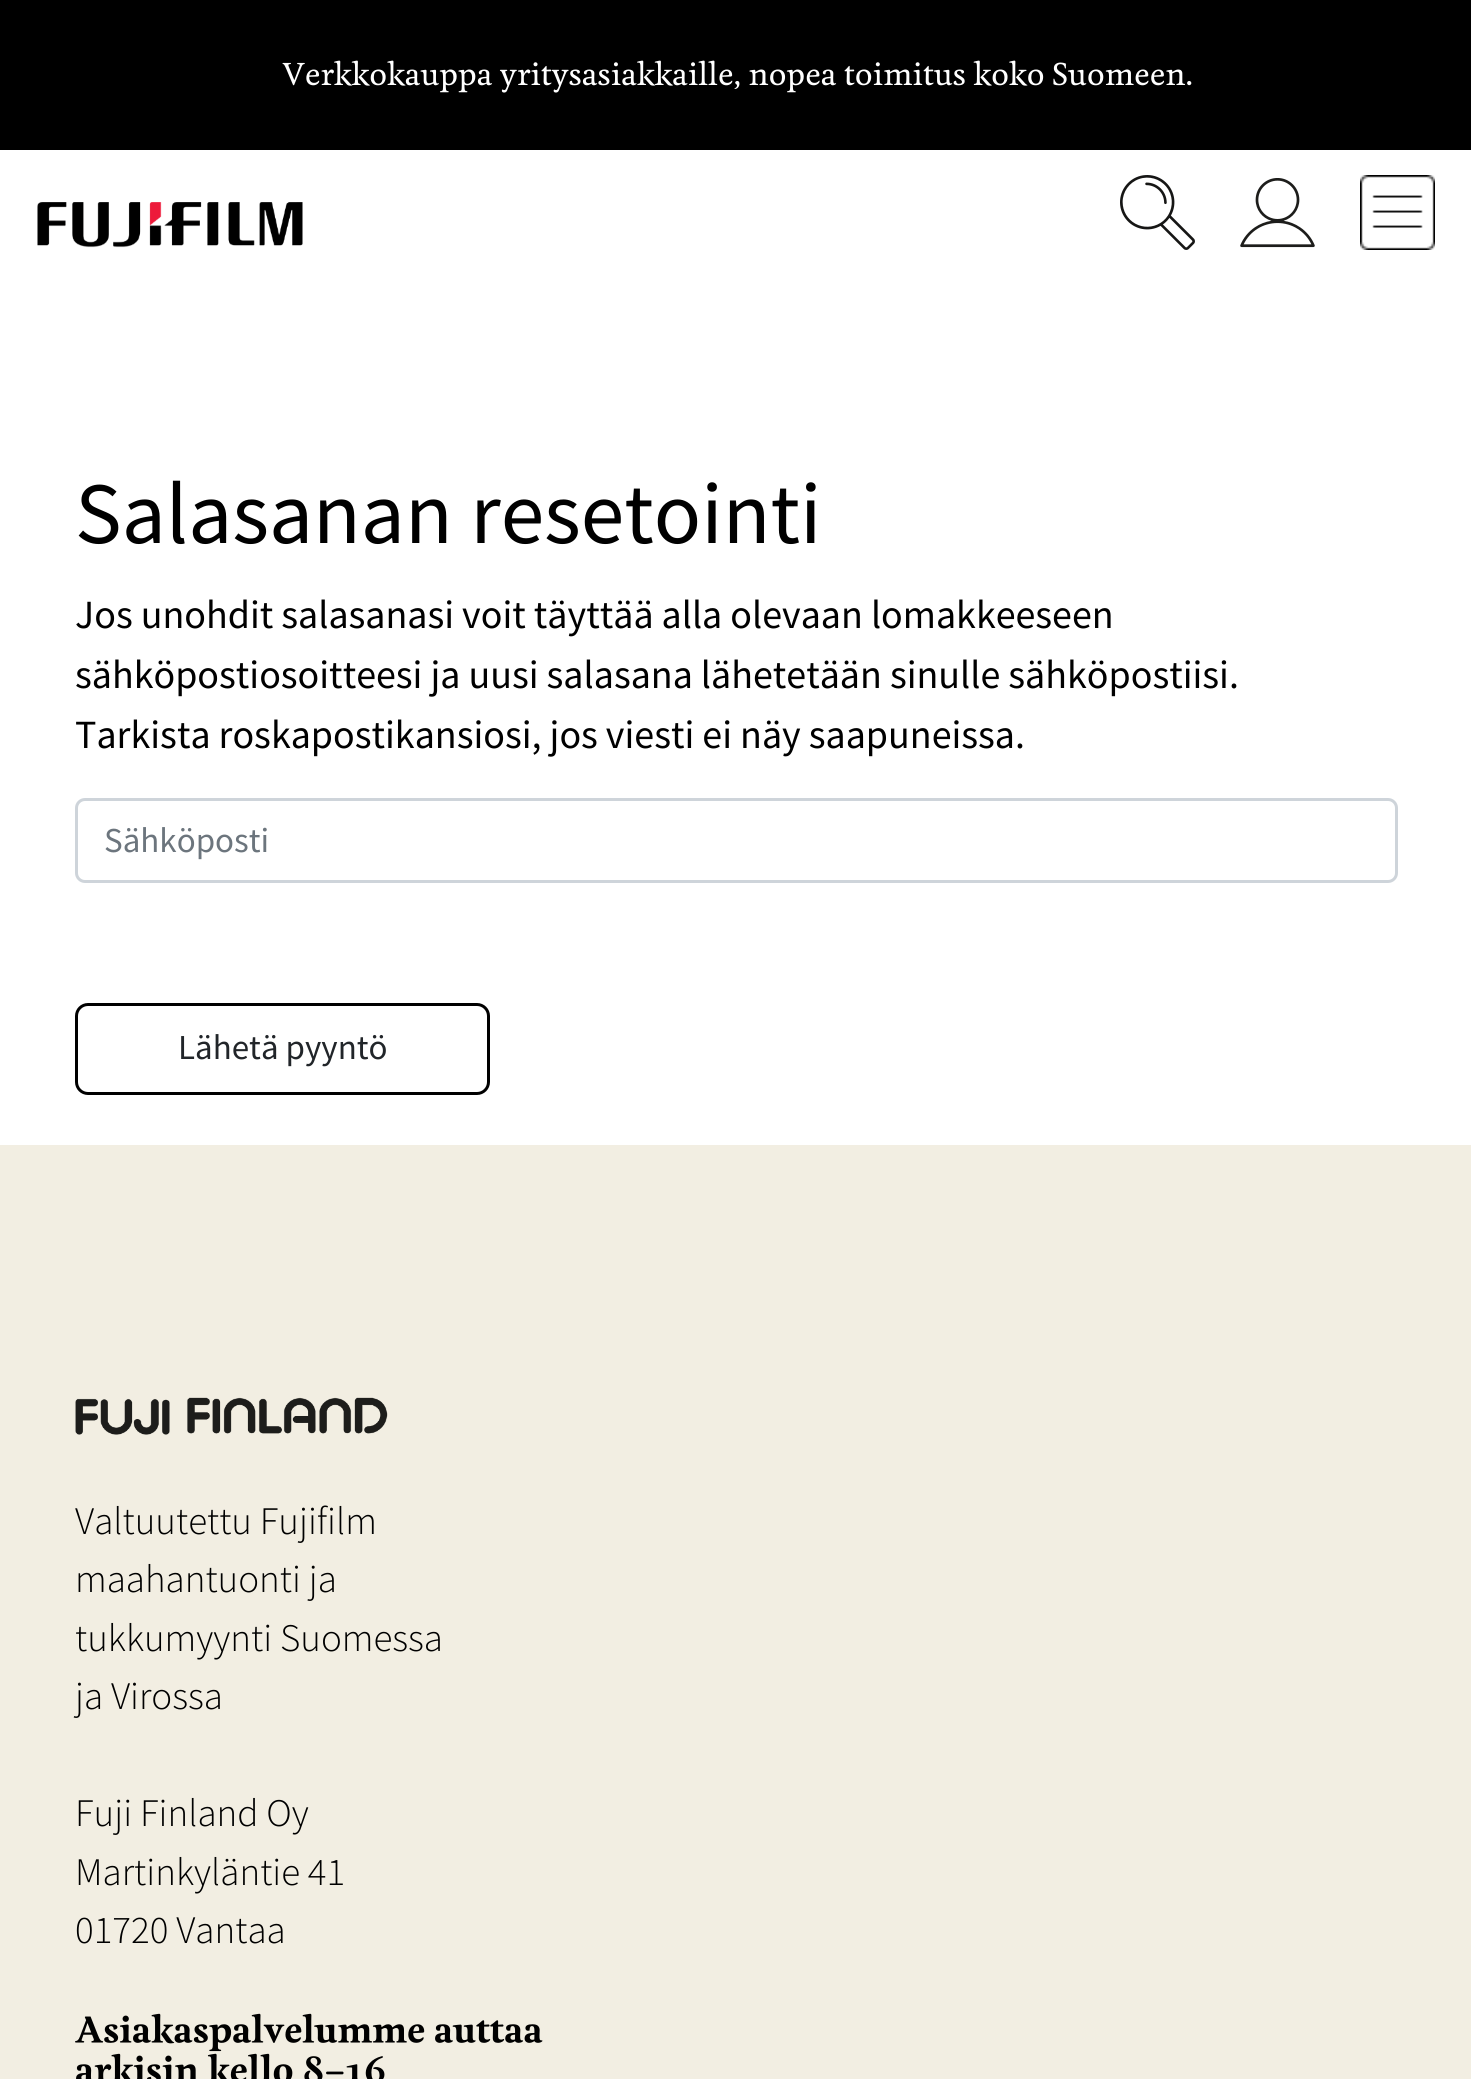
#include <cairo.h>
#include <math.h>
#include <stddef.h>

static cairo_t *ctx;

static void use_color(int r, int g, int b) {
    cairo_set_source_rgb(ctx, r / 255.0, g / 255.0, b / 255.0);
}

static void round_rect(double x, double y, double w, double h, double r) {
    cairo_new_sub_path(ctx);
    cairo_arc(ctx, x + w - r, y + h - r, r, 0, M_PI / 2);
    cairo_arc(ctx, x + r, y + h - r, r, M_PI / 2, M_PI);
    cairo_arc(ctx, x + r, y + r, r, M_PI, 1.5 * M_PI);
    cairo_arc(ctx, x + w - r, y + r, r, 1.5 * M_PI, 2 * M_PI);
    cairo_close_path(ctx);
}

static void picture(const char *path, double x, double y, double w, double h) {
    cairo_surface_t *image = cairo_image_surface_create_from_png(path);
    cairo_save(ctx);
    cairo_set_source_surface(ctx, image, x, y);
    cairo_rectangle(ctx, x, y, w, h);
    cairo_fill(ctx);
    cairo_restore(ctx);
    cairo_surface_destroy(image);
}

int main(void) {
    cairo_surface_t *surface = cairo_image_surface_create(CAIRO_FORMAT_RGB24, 1471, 2079);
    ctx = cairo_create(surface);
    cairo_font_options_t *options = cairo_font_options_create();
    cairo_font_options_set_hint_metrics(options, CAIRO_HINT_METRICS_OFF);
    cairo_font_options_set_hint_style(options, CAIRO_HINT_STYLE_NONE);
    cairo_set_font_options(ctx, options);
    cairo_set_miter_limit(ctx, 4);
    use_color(255, 255, 255);
    cairo_paint(ctx);
    use_color(0, 0, 0);
    cairo_rectangle(ctx, 0, 0, 1471, 150);
    cairo_fill(ctx);
    picture("img1.png", 282, 60, 910, 33);
    picture("img2.png", 37, 202, 266, 46);
    picture("img3.png", 1120, 175, 75, 75);
    picture("img4.png", 1240, 178, 75, 70);
    picture("img5.png", 1360, 175, 75, 75);
    cairo_select_font_face(ctx, "Source Sans Pro", CAIRO_FONT_SLANT_NORMAL, CAIRO_FONT_WEIGHT_NORMAL);
    cairo_set_font_size(ctx, 87.5);
    cairo_move_to(ctx, 75, 543);
    cairo_show_text(ctx, "Salasanan resetointi");
    cairo_set_font_size(ctx, 40);
    cairo_move_to(ctx, 75, 628);
    cairo_show_text(ctx, "Jos unohdit salasanasi voit täyttää alla olevaan lomakkeeseen");
    cairo_move_to(ctx, 75, 688);
    cairo_show_text(ctx, "sähköpostiosoitteesi ja uusi salasana lähetetään sinulle sähköpostiisi.");
    cairo_move_to(ctx, 75, 748);
    cairo_show_text(ctx, "Tarkista roskapostikansiosi, jos viesti ei näy saapuneissa.");
    round_rect(76.5, 799.5, 1320, 82, 8.5);
    use_color(206, 212, 218);
    cairo_set_line_width(ctx, 3);
    cairo_stroke(ctx);
    cairo_set_font_size(ctx, 35);
    use_color(108, 117, 125);
    cairo_move_to(ctx, 104, 852);
    cairo_show_text(ctx, "Sähköposti");
    round_rect(76.5, 1004.5, 412, 89, 11.5);
    use_color(0, 0, 0);
    cairo_stroke(ctx);
    use_color(33, 37, 41);
    cairo_move_to(ctx, 178, 1059);
    cairo_show_text(ctx, "Lähetä pyyntö");
    use_color(242, 238, 226);
    cairo_rectangle(ctx, 0, 1145, 1471, 934);
    cairo_fill(ctx);
    picture("img6.png", 75, 1397, 313, 38);
    cairo_select_font_face(ctx, "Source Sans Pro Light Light", CAIRO_FONT_SLANT_NORMAL, CAIRO_FONT_WEIGHT_NORMAL);
    cairo_set_font_size(ctx, 39);
    use_color(0, 0, 0);
    cairo_move_to(ctx, 75, 1534);
    cairo_show_text(ctx, "Valtuutettu Fujifilm");
    cairo_move_to(ctx, 75, 1592);
    cairo_show_text(ctx, "maahantuonti ja");
    cairo_move_to(ctx, 75, 1651);
    cairo_show_text(ctx, "tukkumyynti Suomessa");
    cairo_move_to(ctx, 75, 1709);
    cairo_show_text(ctx, "ja Virossa");
    cairo_move_to(ctx, 75, 1826);
    cairo_show_text(ctx, "Fuji Finland Oy");
    cairo_move_to(ctx, 75, 1885);
    cairo_show_text(ctx, "Martinkyläntie 41");
    cairo_move_to(ctx, 75, 1943);
    cairo_show_text(ctx, "01720 Vantaa");
    picture("img7.png", 75, 2013, 468, 39);
    picture("img8.png", 76, 2053, 309, 26);
    cairo_surface_write_to_png(surface, "result.png");
    cairo_font_options_destroy(options);
    cairo_destroy(ctx);
    cairo_surface_destroy(surface);
    return 0;
}
